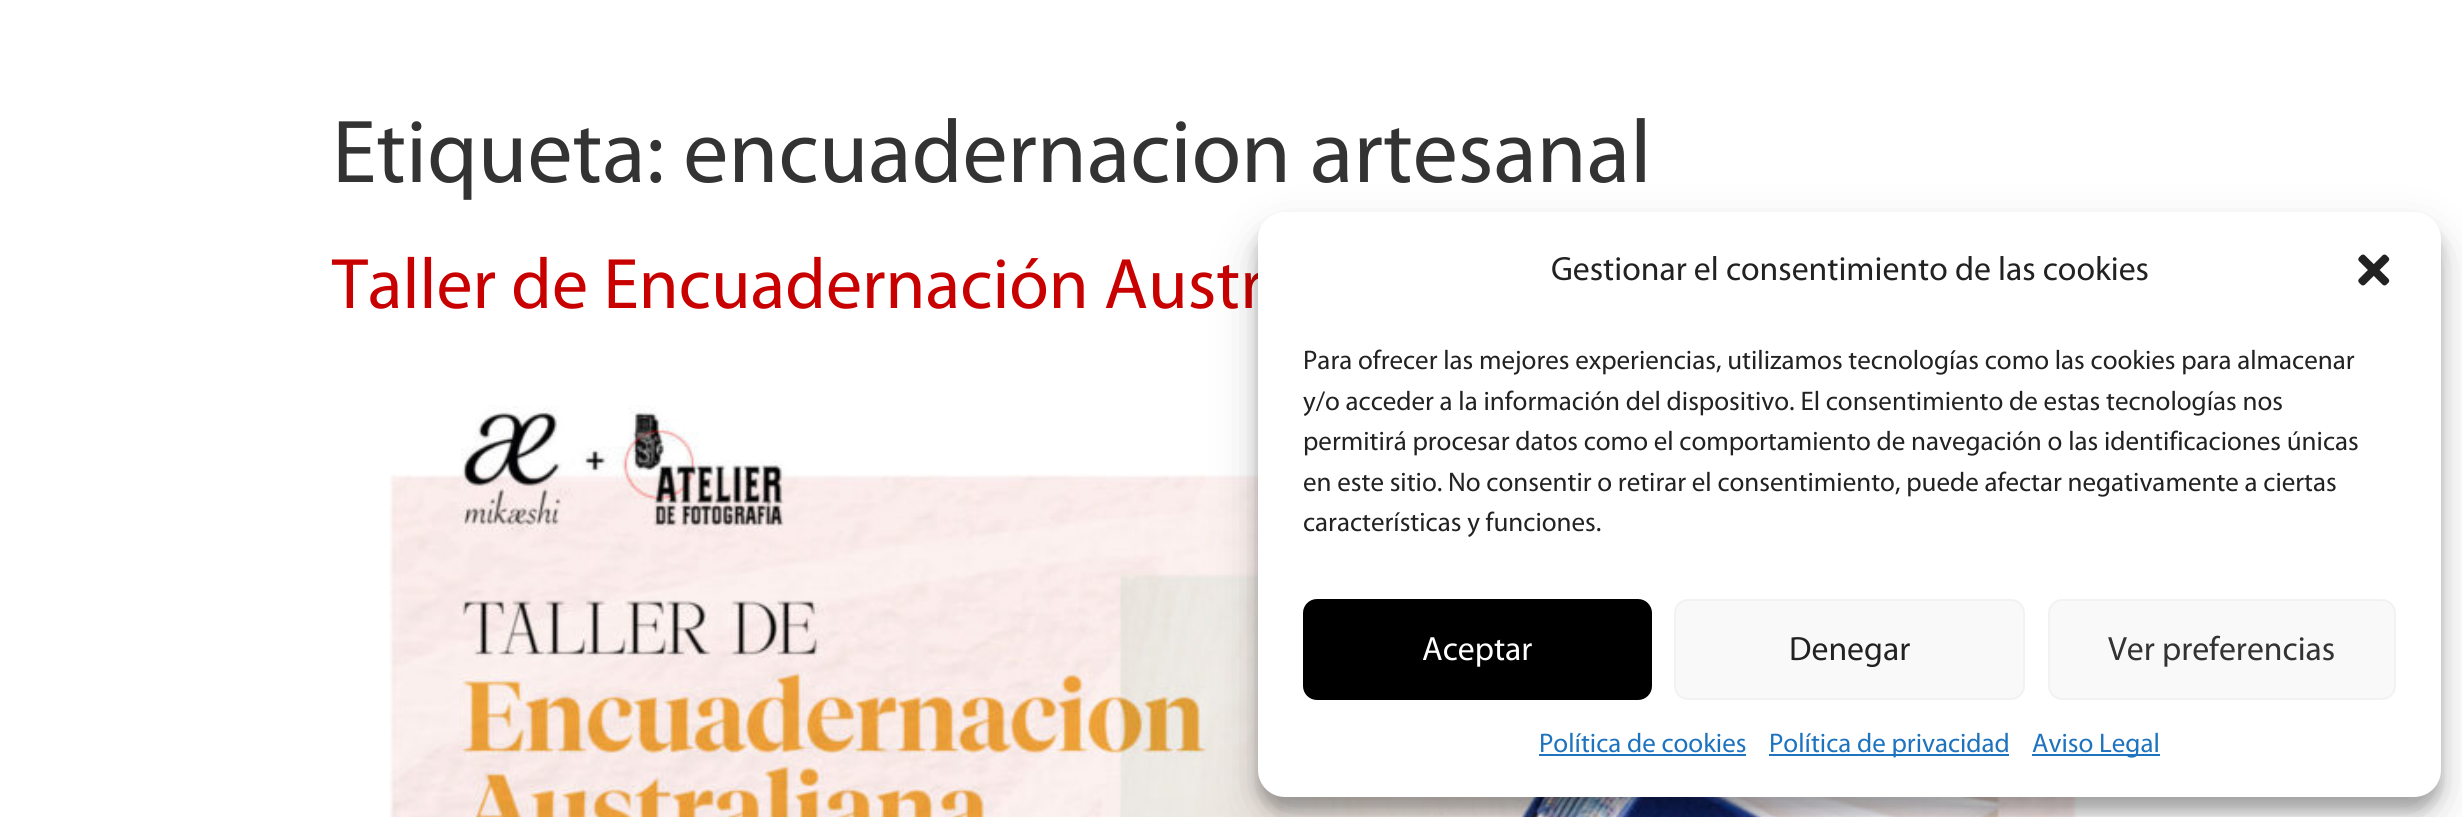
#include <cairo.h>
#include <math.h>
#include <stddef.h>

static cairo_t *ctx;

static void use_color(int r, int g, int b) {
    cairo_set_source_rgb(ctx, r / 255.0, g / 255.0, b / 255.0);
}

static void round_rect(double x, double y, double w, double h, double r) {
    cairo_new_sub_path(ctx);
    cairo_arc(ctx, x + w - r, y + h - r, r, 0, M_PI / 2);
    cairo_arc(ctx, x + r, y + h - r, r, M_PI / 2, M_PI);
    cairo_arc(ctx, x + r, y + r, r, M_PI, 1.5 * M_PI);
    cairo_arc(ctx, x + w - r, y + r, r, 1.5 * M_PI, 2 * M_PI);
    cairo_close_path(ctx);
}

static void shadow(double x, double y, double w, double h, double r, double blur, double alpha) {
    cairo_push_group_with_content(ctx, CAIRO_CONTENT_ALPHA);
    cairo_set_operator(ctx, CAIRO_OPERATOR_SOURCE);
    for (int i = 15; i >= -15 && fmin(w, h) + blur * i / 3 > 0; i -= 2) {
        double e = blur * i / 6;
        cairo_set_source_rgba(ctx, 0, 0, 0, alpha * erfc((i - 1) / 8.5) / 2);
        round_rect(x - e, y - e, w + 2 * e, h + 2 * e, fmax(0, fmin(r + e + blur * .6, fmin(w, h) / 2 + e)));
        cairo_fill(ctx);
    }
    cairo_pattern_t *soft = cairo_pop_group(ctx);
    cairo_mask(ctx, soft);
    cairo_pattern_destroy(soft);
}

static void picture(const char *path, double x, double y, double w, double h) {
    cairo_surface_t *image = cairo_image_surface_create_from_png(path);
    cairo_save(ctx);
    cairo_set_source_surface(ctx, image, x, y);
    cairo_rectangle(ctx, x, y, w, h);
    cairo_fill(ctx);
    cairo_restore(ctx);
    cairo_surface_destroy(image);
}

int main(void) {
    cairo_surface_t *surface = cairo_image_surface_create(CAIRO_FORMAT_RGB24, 2462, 817);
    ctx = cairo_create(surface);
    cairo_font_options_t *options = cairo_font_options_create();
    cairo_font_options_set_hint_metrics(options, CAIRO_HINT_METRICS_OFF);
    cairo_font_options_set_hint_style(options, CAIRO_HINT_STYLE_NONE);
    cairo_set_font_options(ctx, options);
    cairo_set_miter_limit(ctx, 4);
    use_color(255, 255, 255);
    cairo_paint(ctx);
    cairo_select_font_face(ctx, "Myriad", CAIRO_FONT_SLANT_NORMAL, CAIRO_FONT_WEIGHT_NORMAL);
    cairo_set_font_size(ctx, 90);
    use_color(51, 51, 51);
    cairo_move_to(ctx, 332, 182);
    cairo_show_text(ctx, "Etiqueta: encuadernacion artesanal");
    cairo_set_font_size(ctx, 72);
    use_color(201, 0, 0);
    cairo_move_to(ctx, 332, 308);
    cairo_show_text(ctx, "Taller de Encuadernación Austr");
    picture("img1.png", 389, 405, 1688, 412);
    use_color(0, 0, 0);
    shadow(1258, 225, 1183, 585, 27, 7, 0.23);
    shadow(1258, 234, 1183, 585, 27, 22.5, 0.19);
    use_color(255, 255, 255);
    round_rect(1258, 212, 1183, 585, 27);
    cairo_fill(ctx);
    cairo_set_font_size(ctx, 33.75);
    use_color(34, 34, 34);
    cairo_move_to(ctx, 1551, 280);
    cairo_show_text(ctx, "Gestionar el consentimiento de las cookies");
    picture("img2.png", 2358, 254, 32, 32);
    cairo_set_font_size(ctx, 27);
    cairo_move_to(ctx, 1303, 369);
    cairo_show_text(ctx, "Para ofrecer las mejores experiencias, utilizamos tecnologías como las cookies para almacenar");
    cairo_move_to(ctx, 1303, 410);
    cairo_show_text(ctx, "y/o acceder a la información del dispositivo. El consentimiento de estas tecnologías nos");
    cairo_move_to(ctx, 1303, 450);
    cairo_show_text(ctx, "permitirá procesar datos como el comportamiento de navegación o las identificaciones únicas");
    cairo_move_to(ctx, 1303, 491);
    cairo_show_text(ctx, "en este sitio. No consentir o retirar el consentimiento, puede afectar negativamente a ciertas");
    cairo_move_to(ctx, 1303, 531);
    cairo_show_text(ctx, "características y funciones.");
    use_color(0, 0, 0);
    round_rect(1304, 600, 347, 99, 13);
    cairo_fill_preserve(ctx);
    cairo_stroke(ctx);
    cairo_set_font_size(ctx, 33.75);
    use_color(255, 255, 255);
    cairo_move_to(ctx, 1422, 660);
    cairo_show_text(ctx, "Aceptar");
    use_color(249, 249, 249);
    round_rect(1675, 600, 349, 99, 13);
    cairo_fill_preserve(ctx);
    use_color(242, 242, 242);
    cairo_stroke(ctx);
    use_color(34, 34, 34);
    cairo_move_to(ctx, 1789, 660);
    cairo_show_text(ctx, "Denegar");
    use_color(249, 249, 249);
    round_rect(2049, 600, 346, 99, 13);
    cairo_fill_preserve(ctx);
    use_color(242, 242, 242);
    cairo_stroke(ctx);
    use_color(51, 51, 51);
    cairo_move_to(ctx, 2108, 660);
    cairo_show_text(ctx, "Ver preferencias");
    cairo_set_font_size(ctx, 27);
    use_color(30, 115, 190);
    cairo_move_to(ctx, 1539, 752);
    cairo_show_text(ctx, "Política de cookies");
    cairo_rectangle(ctx, 1539, 754, 207, 2);
    cairo_fill(ctx);
    cairo_rectangle(ctx, 1769, 754, 240, 2);
    cairo_fill(ctx);
    cairo_move_to(ctx, 1769, 752);
    cairo_show_text(ctx, "Política de privacidad");
    cairo_rectangle(ctx, 2032, 754, 128, 2);
    cairo_fill(ctx);
    cairo_move_to(ctx, 2032, 752);
    cairo_show_text(ctx, "Aviso Legal");
    cairo_surface_write_to_png(surface, "result.png");
    cairo_font_options_destroy(options);
    cairo_destroy(ctx);
    cairo_surface_destroy(surface);
    return 0;
}
